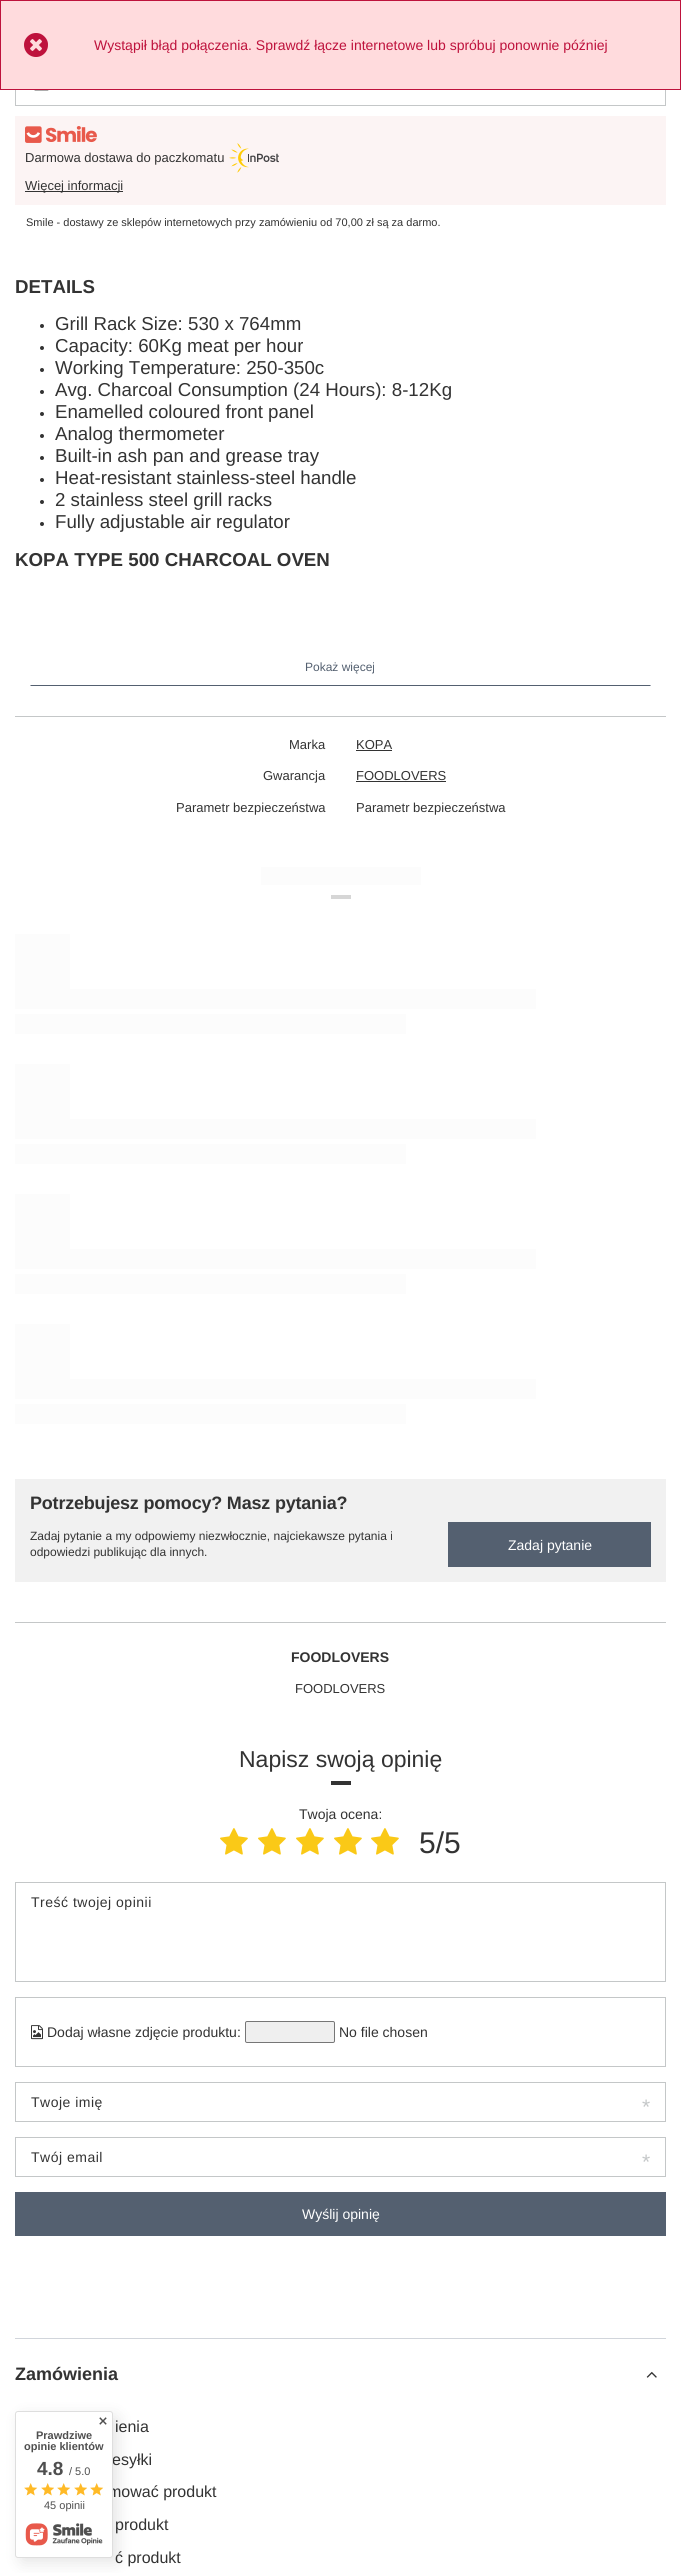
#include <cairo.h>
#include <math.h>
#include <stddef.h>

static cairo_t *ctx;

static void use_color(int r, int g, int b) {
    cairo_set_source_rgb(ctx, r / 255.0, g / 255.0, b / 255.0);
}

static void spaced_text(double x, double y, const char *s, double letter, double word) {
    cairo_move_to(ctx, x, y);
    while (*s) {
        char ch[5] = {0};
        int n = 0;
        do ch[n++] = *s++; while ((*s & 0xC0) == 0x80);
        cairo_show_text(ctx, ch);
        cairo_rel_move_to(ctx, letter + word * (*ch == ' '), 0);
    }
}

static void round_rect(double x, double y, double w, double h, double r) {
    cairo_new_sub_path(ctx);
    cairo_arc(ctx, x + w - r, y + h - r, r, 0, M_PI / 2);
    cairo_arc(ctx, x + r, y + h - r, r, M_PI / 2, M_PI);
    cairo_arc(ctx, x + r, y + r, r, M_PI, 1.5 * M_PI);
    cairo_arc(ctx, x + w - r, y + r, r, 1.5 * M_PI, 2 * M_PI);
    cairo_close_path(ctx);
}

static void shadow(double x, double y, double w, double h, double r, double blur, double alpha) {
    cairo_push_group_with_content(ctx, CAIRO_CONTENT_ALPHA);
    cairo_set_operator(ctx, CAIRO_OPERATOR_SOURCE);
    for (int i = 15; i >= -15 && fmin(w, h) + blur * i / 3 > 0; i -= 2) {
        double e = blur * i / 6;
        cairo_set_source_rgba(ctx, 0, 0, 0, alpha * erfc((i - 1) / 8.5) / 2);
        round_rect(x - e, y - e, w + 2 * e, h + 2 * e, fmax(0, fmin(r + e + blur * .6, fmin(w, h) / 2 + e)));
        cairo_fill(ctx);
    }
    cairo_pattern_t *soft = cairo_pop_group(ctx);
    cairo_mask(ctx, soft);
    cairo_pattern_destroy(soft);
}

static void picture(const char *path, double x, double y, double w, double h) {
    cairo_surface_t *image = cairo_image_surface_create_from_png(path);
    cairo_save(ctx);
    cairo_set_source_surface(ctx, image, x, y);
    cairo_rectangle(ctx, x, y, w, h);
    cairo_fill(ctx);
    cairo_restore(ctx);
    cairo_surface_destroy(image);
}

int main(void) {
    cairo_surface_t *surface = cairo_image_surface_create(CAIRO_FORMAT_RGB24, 681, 2573);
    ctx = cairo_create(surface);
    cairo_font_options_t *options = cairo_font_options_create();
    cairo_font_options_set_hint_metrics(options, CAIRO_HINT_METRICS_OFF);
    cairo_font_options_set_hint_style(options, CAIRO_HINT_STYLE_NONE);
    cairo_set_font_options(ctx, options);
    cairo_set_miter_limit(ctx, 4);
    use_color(255, 255, 255);
    cairo_paint(ctx);
    cairo_rectangle(ctx, 15.5, -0.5, 650, 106);
    use_color(196, 199, 200);
    cairo_set_line_width(ctx, 1);
    cairo_stroke(ctx);
    use_color(255, 219, 221);
    cairo_rectangle(ctx, 0.5, 0.5, 680, 89);
    cairo_fill_preserve(ctx);
    use_color(190, 18, 60);
    cairo_stroke(ctx);
    picture("img1.png", 24, 33, 24, 24);
    cairo_select_font_face(ctx, "Liberation Sans", CAIRO_FONT_SLANT_NORMAL, CAIRO_FONT_WEIGHT_NORMAL);
    cairo_set_font_size(ctx, 14);
    cairo_move_to(ctx, 94, 50);
    cairo_show_text(ctx, "Wystąpił błąd połączenia. Sprawdź łącze internetowe lub spróbuj ponownie później");
    picture("img2.png", 34, 90, 15, 1);
    use_color(252, 244, 244);
    cairo_rectangle(ctx, 15, 116, 651, 89);
    cairo_fill(ctx);
    picture("img3.png", 25, 126, 72, 17);
    cairo_set_font_size(ctx, 13);
    use_color(51, 51, 51);
    cairo_move_to(ctx, 25, 162);
    cairo_show_text(ctx, "Darmowa dostawa do paczkomatu");
    picture("img4.png", 229, 143, 50, 30);
    cairo_rectangle(ctx, 25, 191, 98, 1);
    cairo_fill(ctx);
    cairo_move_to(ctx, 25, 190);
    cairo_show_text(ctx, "Więcej informacji");
    cairo_set_font_size(ctx, 11);
    cairo_move_to(ctx, 26, 226);
    cairo_show_text(ctx, "Smile - dostawy ze sklepów internetowych przy zamówieniu od 70,00 zł są za darmo.");
    cairo_select_font_face(ctx, "Liberation Sans", CAIRO_FONT_SLANT_NORMAL, CAIRO_FONT_WEIGHT_BOLD);
    cairo_set_font_size(ctx, 18.7);
    cairo_move_to(ctx, 15, 293);
    cairo_show_text(ctx, "DETAILS");
    cairo_new_path(ctx);
    cairo_arc(ctx, 42, 326, 2, 0, 2 * M_PI);
    cairo_fill(ctx);
    cairo_select_font_face(ctx, "Liberation Sans", CAIRO_FONT_SLANT_NORMAL, CAIRO_FONT_WEIGHT_NORMAL);
    cairo_move_to(ctx, 55, 330);
    cairo_show_text(ctx, "Grill Rack Size: 530 x 764mm");
    cairo_new_path(ctx);
    cairo_arc(ctx, 42, 348, 2, 0, 2 * M_PI);
    cairo_fill(ctx);
    cairo_move_to(ctx, 55, 352);
    cairo_show_text(ctx, "Capacity: 60Kg meat per hour");
    cairo_new_path(ctx);
    cairo_arc(ctx, 42, 370, 2, 0, 2 * M_PI);
    cairo_fill(ctx);
    cairo_move_to(ctx, 55, 374);
    cairo_show_text(ctx, "Working Temperature: 250-350c");
    cairo_new_path(ctx);
    cairo_arc(ctx, 42, 392, 2, 0, 2 * M_PI);
    cairo_fill(ctx);
    cairo_move_to(ctx, 55, 396);
    cairo_show_text(ctx, "Avg. Charcoal Consumption (24 Hours): 8-12Kg");
    cairo_new_path(ctx);
    cairo_arc(ctx, 42, 414, 2, 0, 2 * M_PI);
    cairo_fill(ctx);
    cairo_move_to(ctx, 55, 418);
    cairo_show_text(ctx, "Enamelled coloured front panel");
    cairo_new_path(ctx);
    cairo_arc(ctx, 42, 436, 2, 0, 2 * M_PI);
    cairo_fill(ctx);
    cairo_move_to(ctx, 55, 440);
    cairo_show_text(ctx, "Analog thermometer");
    cairo_new_path(ctx);
    cairo_arc(ctx, 42, 458, 2, 0, 2 * M_PI);
    cairo_fill(ctx);
    cairo_move_to(ctx, 55, 462);
    cairo_show_text(ctx, "Built-in ash pan and grease tray");
    cairo_new_path(ctx);
    cairo_arc(ctx, 42, 480, 2, 0, 2 * M_PI);
    cairo_fill(ctx);
    cairo_move_to(ctx, 55, 484);
    cairo_show_text(ctx, "Heat-resistant stainless-steel handle");
    cairo_new_path(ctx);
    cairo_arc(ctx, 42, 502, 2, 0, 2 * M_PI);
    cairo_fill(ctx);
    cairo_move_to(ctx, 55, 506);
    cairo_show_text(ctx, "2 stainless steel grill racks");
    cairo_new_path(ctx);
    cairo_arc(ctx, 42, 524, 2, 0, 2 * M_PI);
    cairo_fill(ctx);
    cairo_move_to(ctx, 55, 528);
    cairo_show_text(ctx, "Fully adjustable air regulator");
    cairo_select_font_face(ctx, "Liberation Sans", CAIRO_FONT_SLANT_NORMAL, CAIRO_FONT_WEIGHT_BOLD);
    cairo_move_to(ctx, 15, 566);
    cairo_show_text(ctx, "KOPA TYPE 500 CHARCOAL OVEN");
    use_color(84, 96, 112);
    cairo_new_path(ctx);
    cairo_move_to(ctx, 651, 686);
    cairo_line_to(ctx, 30, 686);
    cairo_line_to(ctx, 31, 685);
    cairo_line_to(ctx, 650, 685);
    cairo_close_path(ctx);
    cairo_fill(ctx);
    cairo_select_font_face(ctx, "Liberation Sans", CAIRO_FONT_SLANT_NORMAL, CAIRO_FONT_WEIGHT_NORMAL);
    cairo_set_font_size(ctx, 12);
    cairo_move_to(ctx, 305, 671);
    cairo_show_text(ctx, "Pokaż więcej");
    use_color(196, 199, 200);
    cairo_rectangle(ctx, 15, 716, 651, 1);
    cairo_fill(ctx);
    cairo_set_font_size(ctx, 13);
    use_color(51, 51, 51);
    cairo_move_to(ctx, 289, 749);
    cairo_show_text(ctx, "Marka");
    cairo_move_to(ctx, 356, 749);
    cairo_show_text(ctx, "KOPA");
    cairo_rectangle(ctx, 356, 750, 36, 1);
    cairo_fill(ctx);
    cairo_move_to(ctx, 263, 780);
    cairo_show_text(ctx, "Gwarancja");
    cairo_move_to(ctx, 356, 780);
    cairo_show_text(ctx, "FOODLOVERS");
    cairo_rectangle(ctx, 356, 781, 90, 1);
    cairo_fill(ctx);
    cairo_move_to(ctx, 176, 812);
    cairo_show_text(ctx, "Parametr bezpieczeństwa");
    cairo_move_to(ctx, 356, 812);
    cairo_show_text(ctx, "Parametr bezpieczeństwa");
    use_color(252, 252, 252);
    cairo_rectangle(ctx, 261, 867, 160, 18);
    cairo_fill(ctx);
    use_color(214, 214, 214);
    cairo_rectangle(ctx, 331, 895, 20, 4);
    cairo_fill(ctx);
    use_color(252, 252, 252);
    cairo_rectangle(ctx, 15, 934, 55, 55);
    cairo_fill(ctx);
    cairo_rectangle(ctx, 15, 989, 521, 20);
    cairo_fill(ctx);
    cairo_rectangle(ctx, 15, 1014, 391, 20);
    cairo_fill(ctx);
    cairo_rectangle(ctx, 15, 1064, 55, 55);
    cairo_fill(ctx);
    cairo_rectangle(ctx, 15, 1119, 521, 20);
    cairo_fill(ctx);
    cairo_rectangle(ctx, 15, 1144, 391, 20);
    cairo_fill(ctx);
    cairo_rectangle(ctx, 15, 1194, 55, 55);
    cairo_fill(ctx);
    cairo_rectangle(ctx, 15, 1249, 521, 20);
    cairo_fill(ctx);
    cairo_rectangle(ctx, 15, 1274, 391, 20);
    cairo_fill(ctx);
    cairo_rectangle(ctx, 15, 1324, 55, 55);
    cairo_fill(ctx);
    cairo_rectangle(ctx, 15, 1379, 521, 20);
    cairo_fill(ctx);
    cairo_rectangle(ctx, 15, 1404, 391, 20);
    cairo_fill(ctx);
    use_color(241, 241, 241);
    cairo_rectangle(ctx, 15, 1479, 651, 103);
    cairo_fill(ctx);
    cairo_select_font_face(ctx, "Liberation Sans", CAIRO_FONT_SLANT_NORMAL, CAIRO_FONT_WEIGHT_BOLD);
    cairo_set_font_size(ctx, 18);
    use_color(51, 51, 51);
    spaced_text(30, 1509, "Potrzebujesz pomocy? Masz pytania?", -0.2, 0);
    cairo_select_font_face(ctx, "Liberation Sans", CAIRO_FONT_SLANT_NORMAL, CAIRO_FONT_WEIGHT_NORMAL);
    cairo_set_font_size(ctx, 12);
    cairo_move_to(ctx, 30, 1540);
    cairo_show_text(ctx, "Zadaj pytanie a my odpowiemy niezwłocznie, najciekawsze pytania i");
    cairo_move_to(ctx, 30, 1556);
    cairo_show_text(ctx, "odpowiedzi publikując dla innych.");
    use_color(84, 96, 112);
    cairo_rectangle(ctx, 448, 1522, 203, 45);
    cairo_fill(ctx);
    cairo_set_font_size(ctx, 14);
    use_color(255, 255, 255);
    cairo_move_to(ctx, 508, 1550);
    cairo_show_text(ctx, "Zadaj pytanie");
    use_color(196, 199, 200);
    cairo_rectangle(ctx, 15, 1622, 651, 1);
    cairo_fill(ctx);
    cairo_select_font_face(ctx, "Liberation Sans", CAIRO_FONT_SLANT_NORMAL, CAIRO_FONT_WEIGHT_BOLD);
    use_color(51, 51, 51);
    cairo_move_to(ctx, 291, 1662);
    cairo_show_text(ctx, "FOODLOVERS");
    cairo_select_font_face(ctx, "Liberation Sans", CAIRO_FONT_SLANT_NORMAL, CAIRO_FONT_WEIGHT_NORMAL);
    cairo_set_font_size(ctx, 13);
    cairo_move_to(ctx, 295, 1693);
    cairo_show_text(ctx, "FOODLOVERS");
    cairo_set_font_size(ctx, 23);
    cairo_move_to(ctx, 239, 1767);
    cairo_show_text(ctx, "Napisz swoją opinię");
    cairo_rectangle(ctx, 331, 1781, 20, 4);
    cairo_fill(ctx);
    cairo_set_font_size(ctx, 14);
    cairo_move_to(ctx, 299, 1819);
    cairo_show_text(ctx, "Twoja ocena:");
    picture("img5.png", 220, 1828, 28, 27);
    picture("img5.png", 258, 1828, 28, 27);
    picture("img5.png", 296, 1828, 28, 27);
    picture("img5.png", 334, 1828, 28, 27);
    picture("img5.png", 371, 1828, 28, 27);
    cairo_set_font_size(ctx, 30);
    cairo_move_to(ctx, 419, 1853);
    cairo_show_text(ctx, "5/5");
    cairo_rectangle(ctx, 15.5, 1882.5, 650, 99);
    use_color(196, 199, 200);
    cairo_stroke(ctx);
    cairo_set_font_size(ctx, 14);
    use_color(51, 51, 51);
    spaced_text(31, 1907, "Treść twojej opinii", 0.5, 0);
    cairo_rectangle(ctx, 15.5, 1997.5, 650, 69);
    use_color(196, 199, 200);
    cairo_stroke(ctx);
    picture("img6.png", 31, 2025, 12, 15);
    use_color(51, 51, 51);
    cairo_move_to(ctx, 47, 2037);
    cairo_show_text(ctx, "Dodaj własne zdjęcie produktu:");
    use_color(239, 239, 239);
    round_rect(245.5, 2021.5, 89, 21, 1.5);
    cairo_fill_preserve(ctx);
    use_color(118, 118, 118);
    cairo_stroke(ctx);
    use_color(51, 51, 51);
    cairo_move_to(ctx, 339, 2037);
    cairo_show_text(ctx, "No file chosen");
    cairo_rectangle(ctx, 15.5, 2082.5, 650, 39);
    use_color(196, 199, 200);
    cairo_stroke(ctx);
    use_color(51, 51, 51);
    spaced_text(31, 2107, "Twoje imię", 0.5, 0);
    cairo_set_font_size(ctx, 21);
    use_color(196, 199, 200);
    cairo_move_to(ctx, 642, 2114);
    cairo_show_text(ctx, "*");
    cairo_rectangle(ctx, 15.5, 2137.5, 650, 39);
    cairo_stroke(ctx);
    cairo_set_font_size(ctx, 14);
    use_color(51, 51, 51);
    spaced_text(31, 2162, "Twój email", 0.5, 0);
    cairo_set_font_size(ctx, 21);
    use_color(196, 199, 200);
    cairo_move_to(ctx, 642, 2169);
    cairo_show_text(ctx, "*");
    use_color(84, 96, 112);
    cairo_rectangle(ctx, 15, 2192, 651, 44);
    cairo_fill(ctx);
    cairo_set_font_size(ctx, 14);
    use_color(255, 255, 255);
    cairo_move_to(ctx, 302, 2219);
    cairo_show_text(ctx, "Wyślij opinię");
    use_color(209, 213, 219);
    cairo_rectangle(ctx, 15, 2338, 651, 1);
    cairo_fill(ctx);
    cairo_select_font_face(ctx, "Liberation Sans", CAIRO_FONT_SLANT_NORMAL, CAIRO_FONT_WEIGHT_BOLD);
    cairo_set_font_size(ctx, 18);
    use_color(51, 51, 51);
    cairo_move_to(ctx, 15, 2380);
    cairo_show_text(ctx, "Zamówienia");
    picture("img7.png", 646, 2371, 11, 7);
    cairo_select_font_face(ctx, "Liberation Sans", CAIRO_FONT_SLANT_NORMAL, CAIRO_FONT_WEIGHT_NORMAL);
    cairo_set_font_size(ctx, 16);
    cairo_move_to(ctx, 115, 2432);
    cairo_show_text(ctx, "ienia");
    cairo_move_to(ctx, 112, 2465);
    cairo_show_text(ctx, "esyłki");
    cairo_move_to(ctx, 108, 2497);
    cairo_show_text(ctx, "mować produkt");
    cairo_move_to(ctx, 115, 2530);
    cairo_show_text(ctx, "produkt");
    cairo_move_to(ctx, 115, 2563);
    cairo_show_text(ctx, "ć produkt");
    use_color(0, 0, 0);
    shadow(20, 2416, 98, 147, 3, 7.5, 0.1);
    use_color(255, 255, 255);
    round_rect(15.5, 2411.5, 97, 146, 2.5);
    cairo_fill_preserve(ctx);
    use_color(222, 222, 222);
    cairo_stroke(ctx);
    picture("img8.png", 99, 2417, 8, 8);
    cairo_select_font_face(ctx, "Liberation Sans", CAIRO_FONT_SLANT_NORMAL, CAIRO_FONT_WEIGHT_BOLD);
    cairo_set_font_size(ctx, 11);
    use_color(79, 79, 79);
    cairo_move_to(ctx, 36, 2439);
    cairo_show_text(ctx, "Prawdziwe");
    cairo_move_to(ctx, 24, 2450);
    cairo_show_text(ctx, "opinie klientów");
    cairo_set_font_size(ctx, 19);
    cairo_move_to(ctx, 37, 2475);
    cairo_show_text(ctx, "4.8");
    cairo_select_font_face(ctx, "Liberation Sans", CAIRO_FONT_SLANT_NORMAL, CAIRO_FONT_WEIGHT_NORMAL);
    cairo_set_font_size(ctx, 11);
    cairo_move_to(ctx, 69, 2475);
    cairo_show_text(ctx, "/ 5.0");
    picture("img9.png", 24, 2483, 14, 13);
    picture("img10.png", 41, 2483, 13, 13);
    picture("img9.png", 57, 2483, 14, 13);
    picture("img10.png", 74, 2483, 13, 13);
    picture("img9.png", 90, 2483, 14, 13);
    cairo_move_to(ctx, 44, 2509);
    cairo_show_text(ctx, "45 opinii");
    picture("img11.png", 25, 2523, 78, 23);
    cairo_surface_write_to_png(surface, "result.png");
    cairo_font_options_destroy(options);
    cairo_destroy(ctx);
    cairo_surface_destroy(surface);
    return 0;
}
